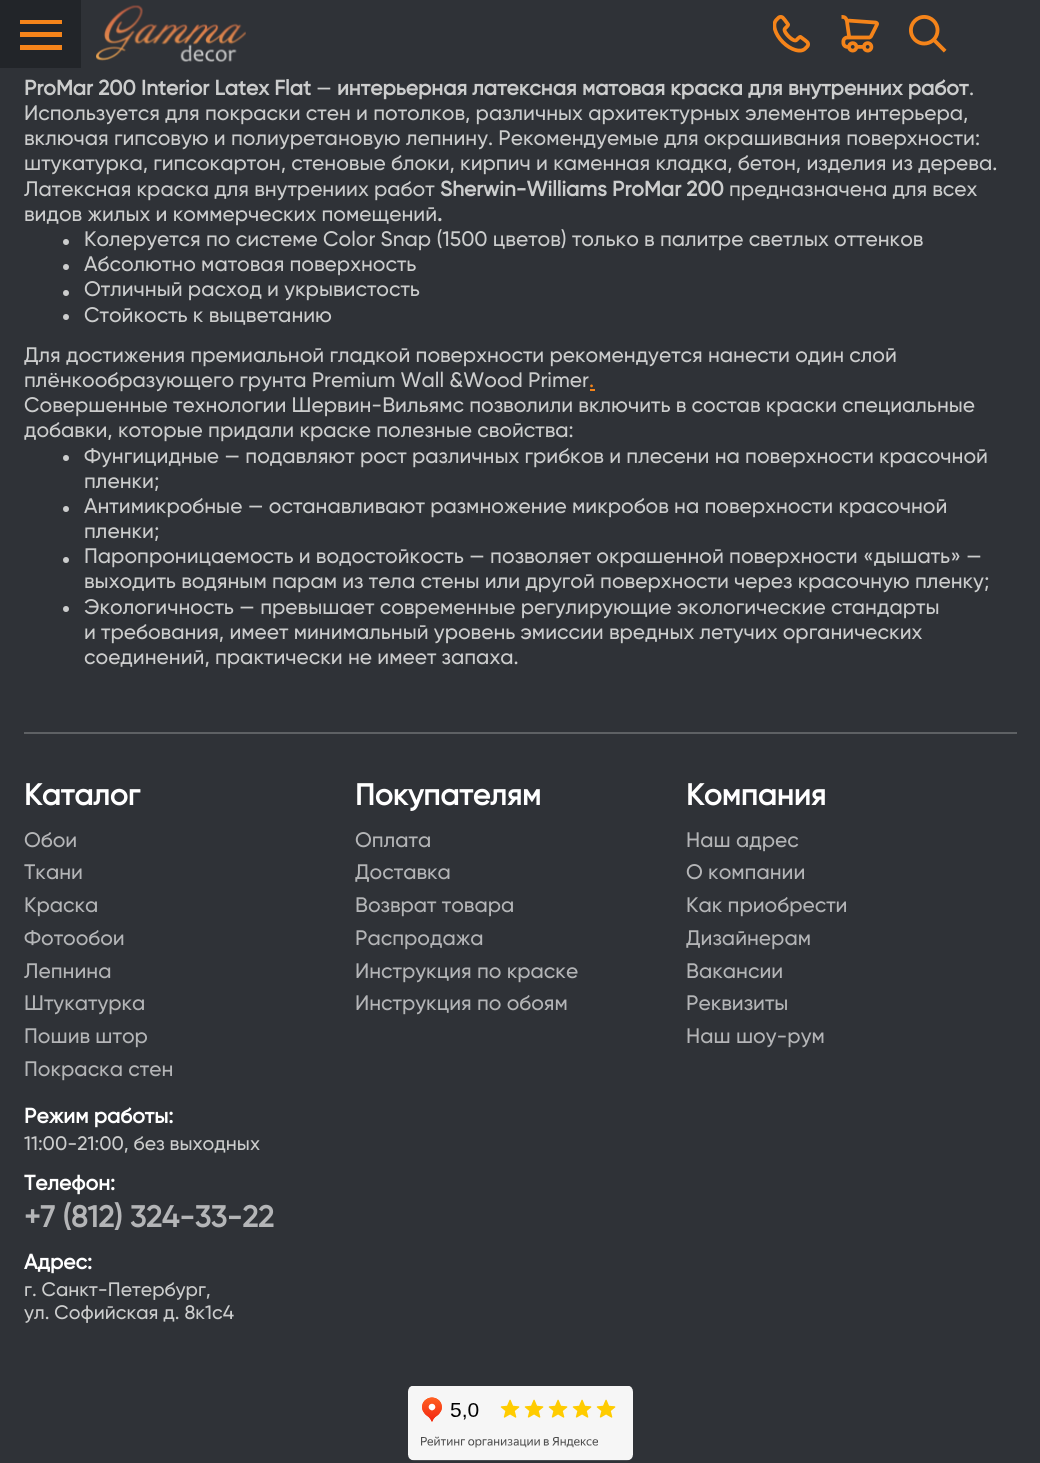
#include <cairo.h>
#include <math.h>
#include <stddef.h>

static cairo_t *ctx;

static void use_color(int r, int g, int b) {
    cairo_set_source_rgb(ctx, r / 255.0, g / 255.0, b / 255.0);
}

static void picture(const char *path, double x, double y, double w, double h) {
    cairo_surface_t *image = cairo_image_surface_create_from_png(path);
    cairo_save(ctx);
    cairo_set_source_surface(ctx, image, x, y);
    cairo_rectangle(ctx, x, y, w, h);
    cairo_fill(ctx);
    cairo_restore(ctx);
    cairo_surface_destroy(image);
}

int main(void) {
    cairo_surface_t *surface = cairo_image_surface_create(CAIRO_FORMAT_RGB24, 1040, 1463);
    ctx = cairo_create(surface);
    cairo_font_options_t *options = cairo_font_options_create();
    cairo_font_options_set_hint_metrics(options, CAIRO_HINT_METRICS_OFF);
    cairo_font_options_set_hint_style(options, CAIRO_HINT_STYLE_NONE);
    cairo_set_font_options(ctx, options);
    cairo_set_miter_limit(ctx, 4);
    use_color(47, 50, 55);
    cairo_paint(ctx);
    use_color(34, 37, 41);
    cairo_rectangle(ctx, 0, 0, 81, 68);
    cairo_fill(ctx);
    use_color(245, 132, 26);
    cairo_set_fill_rule(ctx, CAIRO_FILL_RULE_EVEN_ODD);
    cairo_new_path(ctx);
    cairo_move_to(ctx, 62, 24);
    cairo_line_to(ctx, 62, 20);
    cairo_line_to(ctx, 20, 20);
    cairo_line_to(ctx, 20, 24);
    cairo_close_path(ctx);
    cairo_move_to(ctx, 62, 32);
    cairo_line_to(ctx, 62, 37);
    cairo_line_to(ctx, 20, 37);
    cairo_line_to(ctx, 20, 32);
    cairo_close_path(ctx);
    cairo_move_to(ctx, 62, 45);
    cairo_line_to(ctx, 62, 50);
    cairo_line_to(ctx, 20, 50);
    cairo_line_to(ctx, 20, 45);
    cairo_close_path(ctx);
    cairo_fill(ctx);
    picture("img1.png", 96, 5, 150, 57);
    picture("img2.png", 773, 15, 37, 38);
    picture("img3.png", 841, 15, 38, 38);
    picture("img4.png", 909, 15, 38, 38);
    cairo_select_font_face(ctx, "Gilroy", CAIRO_FONT_SLANT_NORMAL, CAIRO_FONT_WEIGHT_BOLD);
    cairo_set_font_size(ctx, 21);
    use_color(204, 205, 205);
    cairo_move_to(ctx, 24, 95);
    cairo_show_text(ctx, "ProMar 200 Interior Latex Flat");
    cairo_select_font_face(ctx, "Gilroy Medium", CAIRO_FONT_SLANT_NORMAL, CAIRO_FONT_WEIGHT_NORMAL);
    cairo_move_to(ctx, 316, 95);
    cairo_show_text(ctx, "—");
    cairo_select_font_face(ctx, "Gilroy", CAIRO_FONT_SLANT_NORMAL, CAIRO_FONT_WEIGHT_BOLD);
    cairo_move_to(ctx, 337, 95);
    cairo_show_text(ctx, "интерьерная латексная матовая краска для внутренних работ");
    cairo_select_font_face(ctx, "Gilroy Medium", CAIRO_FONT_SLANT_NORMAL, CAIRO_FONT_WEIGHT_NORMAL);
    cairo_move_to(ctx, 969, 95);
    cairo_show_text(ctx, ".");
    cairo_move_to(ctx, 24, 120);
    cairo_show_text(ctx, "Используется для покраски стен и потолков, различных архитектурных элементов интерьера,");
    cairo_move_to(ctx, 24, 145);
    cairo_show_text(ctx, "включая гипсовую и полиуретановую лепнину. Рекомендуемые для окрашивания поверхности:");
    cairo_move_to(ctx, 24, 170);
    cairo_show_text(ctx, "штукатурка, гипсокартон, стеновые блоки, кирпич и каменная кладка, бетон, изделия из дерева.");
    cairo_move_to(ctx, 24, 196);
    cairo_show_text(ctx, "Латексная краска для внутрениих работ");
    cairo_select_font_face(ctx, "Gilroy", CAIRO_FONT_SLANT_NORMAL, CAIRO_FONT_WEIGHT_BOLD);
    cairo_move_to(ctx, 440, 196);
    cairo_show_text(ctx, "Sherwin-Williams ProMar 200");
    cairo_select_font_face(ctx, "Gilroy Medium", CAIRO_FONT_SLANT_NORMAL, CAIRO_FONT_WEIGHT_NORMAL);
    cairo_move_to(ctx, 729, 196);
    cairo_show_text(ctx, "предназначена для всех");
    cairo_move_to(ctx, 24, 221);
    cairo_show_text(ctx, "видов жилых и коммерческих помещений");
    cairo_select_font_face(ctx, "Gilroy", CAIRO_FONT_SLANT_NORMAL, CAIRO_FONT_WEIGHT_BOLD);
    cairo_move_to(ctx, 437, 221);
    cairo_show_text(ctx, ".");
    cairo_new_path(ctx);
    cairo_arc(ctx, 66, 242, 3, 0, 2 * M_PI);
    cairo_fill(ctx);
    cairo_select_font_face(ctx, "Gilroy Medium", CAIRO_FONT_SLANT_NORMAL, CAIRO_FONT_WEIGHT_NORMAL);
    cairo_move_to(ctx, 84, 246);
    cairo_show_text(ctx, "Колеруется по системе Color Snap (1500 цветов) только в палитре светлых оттенков");
    cairo_new_path(ctx);
    cairo_arc(ctx, 66, 267, 3, 0, 2 * M_PI);
    cairo_fill(ctx);
    cairo_move_to(ctx, 84, 271);
    cairo_show_text(ctx, "Абсолютно матовая поверхность");
    cairo_new_path(ctx);
    cairo_arc(ctx, 66, 293, 3, 0, 2 * M_PI);
    cairo_fill(ctx);
    cairo_move_to(ctx, 84, 296);
    cairo_show_text(ctx, "Отличный расход и укрывистость");
    cairo_new_path(ctx);
    cairo_arc(ctx, 66, 317, 3, 0, 2 * M_PI);
    cairo_fill(ctx);
    cairo_move_to(ctx, 84, 322);
    cairo_show_text(ctx, "Стойкость к выцветанию");
    cairo_move_to(ctx, 24, 362);
    cairo_show_text(ctx, "Для достижения премиальной гладкой поверхности рекомендуется нанести один слой");
    cairo_move_to(ctx, 24, 387);
    cairo_show_text(ctx, "плёнкообразующего грунта Premium Wall &Wood Primer");
    use_color(245, 132, 26);
    cairo_move_to(ctx, 589, 387);
    cairo_show_text(ctx, ".");
    cairo_rectangle(ctx, 590, 389, 5, 2);
    cairo_fill(ctx);
    use_color(204, 205, 205);
    cairo_move_to(ctx, 24, 412);
    cairo_show_text(ctx, "Совершенные технологии Шервин-Вильямс позволили включить в состав краски специальные");
    cairo_move_to(ctx, 24, 437);
    cairo_show_text(ctx, "добавки, которые придали краске полезные свойства:");
    cairo_new_path(ctx);
    cairo_arc(ctx, 66, 458, 3, 0, 2 * M_PI);
    cairo_fill(ctx);
    cairo_move_to(ctx, 84, 463);
    cairo_show_text(ctx, "Фунгицидные — подавляют рост различных грибков и плесени на поверхности красочной");
    cairo_move_to(ctx, 84, 488);
    cairo_show_text(ctx, "пленки;");
    cairo_new_path(ctx);
    cairo_arc(ctx, 66, 509, 3, 0, 2 * M_PI);
    cairo_fill(ctx);
    cairo_move_to(ctx, 84, 513);
    cairo_show_text(ctx, "Антимикробные — останавливают размножение микробов на поверхности красочной");
    cairo_move_to(ctx, 84, 538);
    cairo_show_text(ctx, "пленки;");
    cairo_new_path(ctx);
    cairo_arc(ctx, 66, 560, 3, 0, 2 * M_PI);
    cairo_fill(ctx);
    cairo_move_to(ctx, 84, 563);
    cairo_show_text(ctx, "Паропроницаемость и водостойкость — позволяет окрашенной поверхности «дышать» —");
    cairo_move_to(ctx, 84, 588);
    cairo_show_text(ctx, "выходить водяным парам из тела стены или другой поверхности через красочную пленку;");
    cairo_new_path(ctx);
    cairo_arc(ctx, 66, 609, 3, 0, 2 * M_PI);
    cairo_fill(ctx);
    cairo_move_to(ctx, 84, 614);
    cairo_show_text(ctx, "Экологичность — превышает современные регулирующие экологические стандарты");
    cairo_move_to(ctx, 84, 639);
    cairo_show_text(ctx, "и требования, имеет минимальный уровень эмиссии вредных летучих органических");
    cairo_move_to(ctx, 84, 664);
    cairo_show_text(ctx, "соединений, практически не имеет запаха.");
    use_color(94, 97, 100);
    cairo_rectangle(ctx, 24, 732, 993, 2);
    cairo_fill(ctx);
    cairo_select_font_face(ctx, "Gilroy", CAIRO_FONT_SLANT_NORMAL, CAIRO_FONT_WEIGHT_BOLD);
    cairo_set_font_size(ctx, 30);
    use_color(255, 255, 255);
    cairo_move_to(ctx, 24, 805);
    cairo_show_text(ctx, "Каталог");
    cairo_select_font_face(ctx, "Gilroy Medium", CAIRO_FONT_SLANT_NORMAL, CAIRO_FONT_WEIGHT_NORMAL);
    cairo_set_font_size(ctx, 21);
    use_color(180, 181, 183);
    cairo_move_to(ctx, 24, 847);
    cairo_show_text(ctx, "Обои");
    cairo_move_to(ctx, 24, 879);
    cairo_show_text(ctx, "Ткани");
    cairo_move_to(ctx, 24, 912);
    cairo_show_text(ctx, "Краска");
    cairo_move_to(ctx, 24, 945);
    cairo_show_text(ctx, "Фотообои");
    cairo_move_to(ctx, 24, 978);
    cairo_show_text(ctx, "Лепнина");
    cairo_move_to(ctx, 24, 1010);
    cairo_show_text(ctx, "Штукатурка");
    cairo_move_to(ctx, 24, 1043);
    cairo_show_text(ctx, "Пошив штор");
    cairo_move_to(ctx, 24, 1076);
    cairo_show_text(ctx, "Покраска стен");
    cairo_select_font_face(ctx, "Gilroy", CAIRO_FONT_SLANT_NORMAL, CAIRO_FONT_WEIGHT_BOLD);
    cairo_set_font_size(ctx, 30);
    use_color(255, 255, 255);
    cairo_move_to(ctx, 355, 805);
    cairo_show_text(ctx, "Покупателям");
    cairo_select_font_face(ctx, "Gilroy Medium", CAIRO_FONT_SLANT_NORMAL, CAIRO_FONT_WEIGHT_NORMAL);
    cairo_set_font_size(ctx, 21);
    use_color(180, 181, 183);
    cairo_move_to(ctx, 355, 847);
    cairo_show_text(ctx, "Оплата");
    cairo_move_to(ctx, 355, 879);
    cairo_show_text(ctx, "Доставка");
    cairo_move_to(ctx, 355, 912);
    cairo_show_text(ctx, "Возврат товара");
    cairo_move_to(ctx, 355, 945);
    cairo_show_text(ctx, "Распродажа");
    cairo_move_to(ctx, 355, 978);
    cairo_show_text(ctx, "Инструкция по краске");
    cairo_move_to(ctx, 355, 1010);
    cairo_show_text(ctx, "Инструкция по обоям");
    cairo_select_font_face(ctx, "Gilroy", CAIRO_FONT_SLANT_NORMAL, CAIRO_FONT_WEIGHT_BOLD);
    cairo_set_font_size(ctx, 30);
    use_color(255, 255, 255);
    cairo_move_to(ctx, 686, 805);
    cairo_show_text(ctx, "Компания");
    cairo_select_font_face(ctx, "Gilroy Medium", CAIRO_FONT_SLANT_NORMAL, CAIRO_FONT_WEIGHT_NORMAL);
    cairo_set_font_size(ctx, 21);
    use_color(180, 181, 183);
    cairo_move_to(ctx, 686, 847);
    cairo_show_text(ctx, "Наш адрес");
    cairo_move_to(ctx, 686, 879);
    cairo_show_text(ctx, "О компании");
    cairo_move_to(ctx, 686, 912);
    cairo_show_text(ctx, "Как приобрести");
    cairo_move_to(ctx, 686, 945);
    cairo_show_text(ctx, "Дизайнерам");
    cairo_move_to(ctx, 686, 978);
    cairo_show_text(ctx, "Вакансии");
    cairo_move_to(ctx, 686, 1010);
    cairo_show_text(ctx, "Реквизиты");
    cairo_move_to(ctx, 686, 1043);
    cairo_show_text(ctx, "Наш шоу-рум");
    cairo_select_font_face(ctx, "Gilroy", CAIRO_FONT_SLANT_NORMAL, CAIRO_FONT_WEIGHT_BOLD);
    use_color(255, 255, 255);
    cairo_move_to(ctx, 24, 1123);
    cairo_show_text(ctx, "Режим работы:");
    cairo_select_font_face(ctx, "Gilroy Medium", CAIRO_FONT_SLANT_NORMAL, CAIRO_FONT_WEIGHT_NORMAL);
    cairo_set_font_size(ctx, 19.5);
    use_color(204, 205, 205);
    cairo_move_to(ctx, 24, 1150);
    cairo_show_text(ctx, "11:00-21:00, без выходных");
    cairo_select_font_face(ctx, "Gilroy", CAIRO_FONT_SLANT_NORMAL, CAIRO_FONT_WEIGHT_BOLD);
    cairo_set_font_size(ctx, 21);
    use_color(255, 255, 255);
    cairo_move_to(ctx, 24, 1190);
    cairo_show_text(ctx, "Телефон:");
    cairo_set_font_size(ctx, 30);
    use_color(180, 181, 183);
    cairo_move_to(ctx, 24, 1227);
    cairo_show_text(ctx, "+7 (812) 324-33-22");
    cairo_set_font_size(ctx, 21);
    use_color(255, 255, 255);
    cairo_move_to(ctx, 24, 1269);
    cairo_show_text(ctx, "Адрес:");
    cairo_select_font_face(ctx, "Gilroy Medium", CAIRO_FONT_SLANT_NORMAL, CAIRO_FONT_WEIGHT_NORMAL);
    cairo_set_font_size(ctx, 19.5);
    use_color(204, 205, 205);
    cairo_move_to(ctx, 24, 1296);
    cairo_show_text(ctx, "г. Санкт-Петербург,");
    cairo_move_to(ctx, 24, 1319);
    cairo_show_text(ctx, "ул. Софийская д. 8к1с4");
    picture("img5.png", 408, 1386, 225, 75);
    cairo_surface_write_to_png(surface, "result.png");
    cairo_font_options_destroy(options);
    cairo_destroy(ctx);
    cairo_surface_destroy(surface);
    return 0;
}
